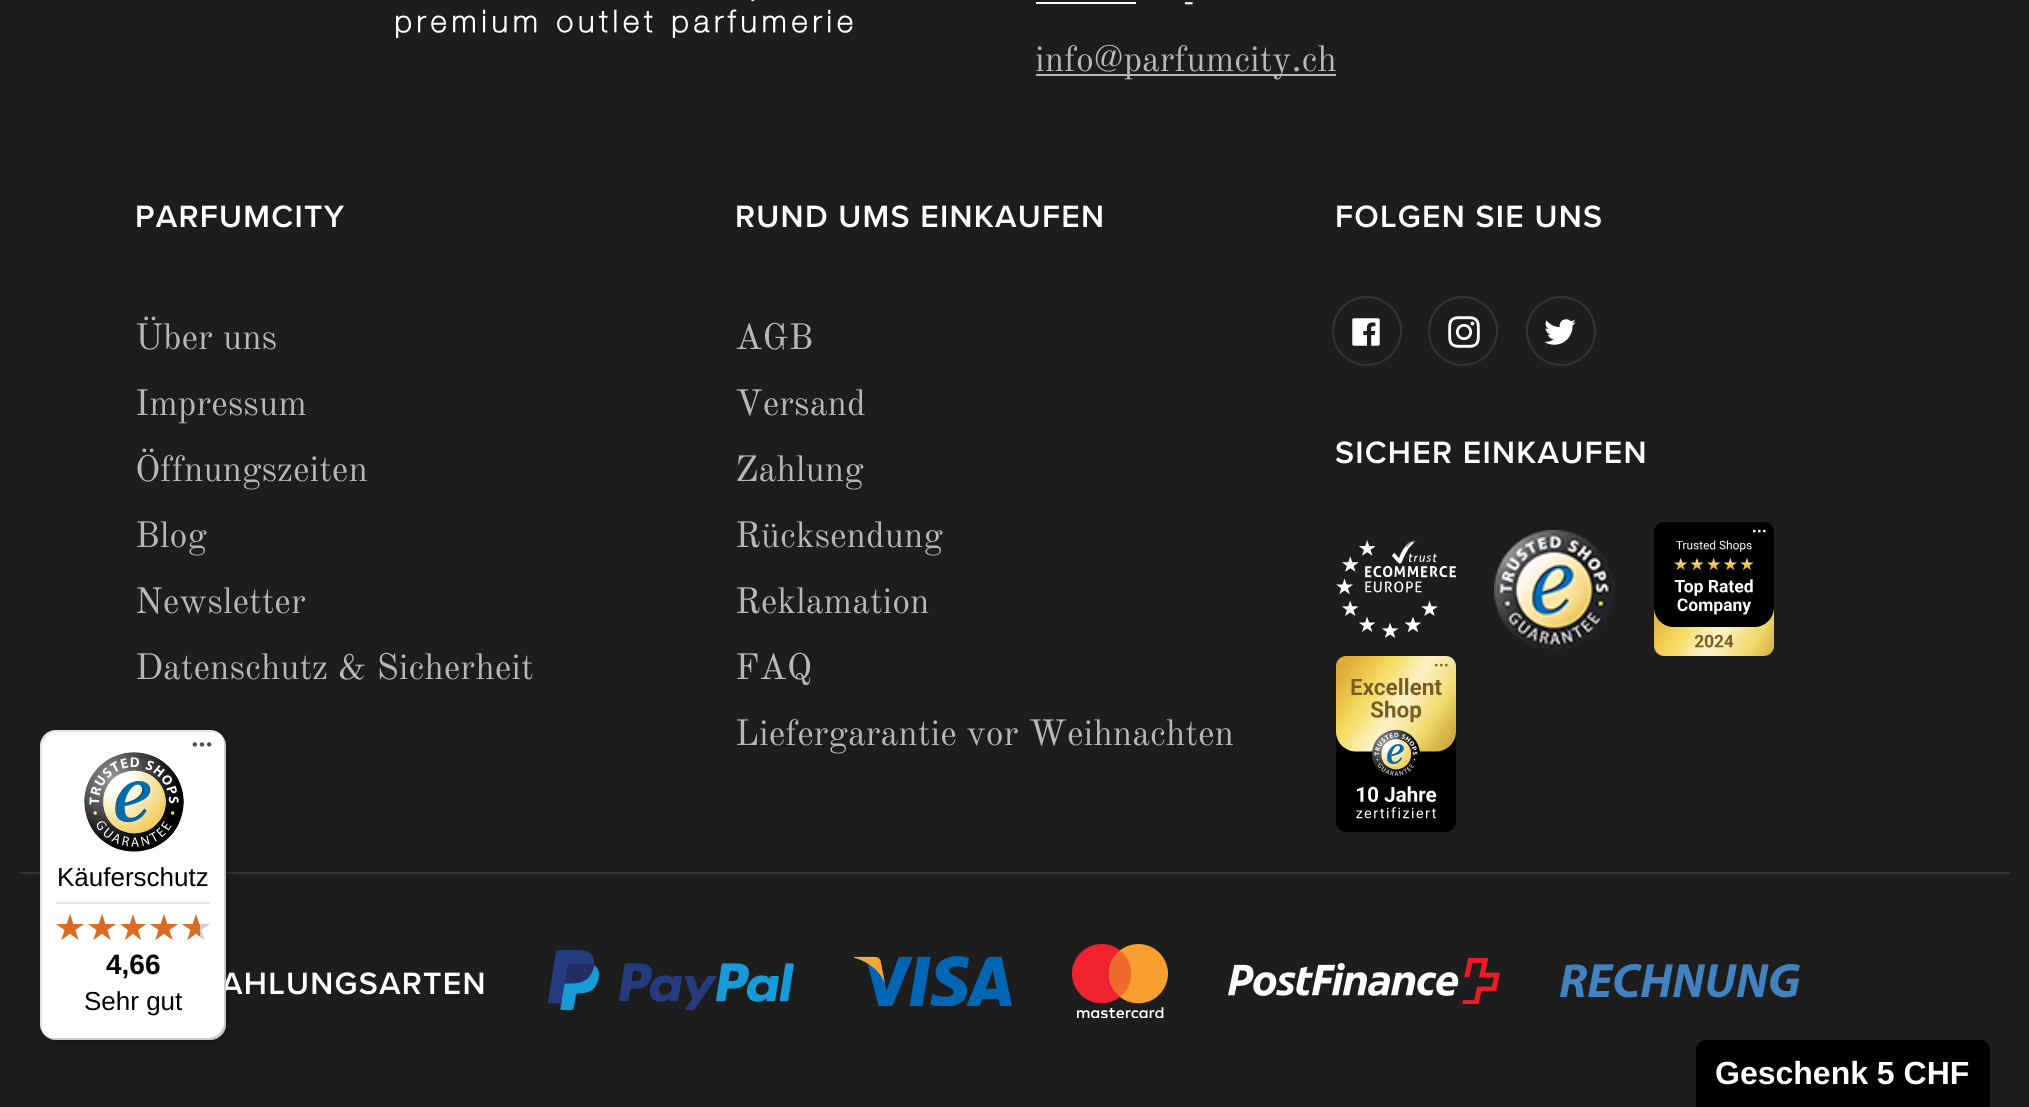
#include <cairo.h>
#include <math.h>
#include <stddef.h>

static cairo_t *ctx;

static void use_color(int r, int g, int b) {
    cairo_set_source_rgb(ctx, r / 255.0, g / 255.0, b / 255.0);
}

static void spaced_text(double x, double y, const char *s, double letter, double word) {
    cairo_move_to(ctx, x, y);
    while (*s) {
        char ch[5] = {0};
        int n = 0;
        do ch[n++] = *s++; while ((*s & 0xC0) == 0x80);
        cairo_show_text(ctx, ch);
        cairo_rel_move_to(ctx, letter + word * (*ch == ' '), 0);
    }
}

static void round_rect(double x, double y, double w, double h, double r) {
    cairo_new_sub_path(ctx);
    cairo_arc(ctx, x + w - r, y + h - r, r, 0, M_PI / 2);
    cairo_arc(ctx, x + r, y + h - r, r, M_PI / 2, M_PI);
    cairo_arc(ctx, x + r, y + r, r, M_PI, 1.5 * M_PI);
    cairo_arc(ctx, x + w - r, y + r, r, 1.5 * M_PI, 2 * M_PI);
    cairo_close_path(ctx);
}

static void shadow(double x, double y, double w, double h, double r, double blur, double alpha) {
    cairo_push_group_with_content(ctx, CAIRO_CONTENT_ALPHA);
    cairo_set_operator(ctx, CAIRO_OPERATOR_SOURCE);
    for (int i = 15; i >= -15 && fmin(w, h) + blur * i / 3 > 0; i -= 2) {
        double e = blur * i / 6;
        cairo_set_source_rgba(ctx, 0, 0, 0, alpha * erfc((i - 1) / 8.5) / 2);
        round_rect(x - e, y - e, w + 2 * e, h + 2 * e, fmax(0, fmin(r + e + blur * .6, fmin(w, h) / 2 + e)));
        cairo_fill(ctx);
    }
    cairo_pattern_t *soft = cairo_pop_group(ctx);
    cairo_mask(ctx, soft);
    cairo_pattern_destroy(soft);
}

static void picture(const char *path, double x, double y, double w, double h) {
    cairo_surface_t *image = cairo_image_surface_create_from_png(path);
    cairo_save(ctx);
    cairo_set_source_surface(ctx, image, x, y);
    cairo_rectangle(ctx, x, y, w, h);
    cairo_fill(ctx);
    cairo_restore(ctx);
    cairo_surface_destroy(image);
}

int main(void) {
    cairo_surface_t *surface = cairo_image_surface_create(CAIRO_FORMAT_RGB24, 2029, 1107);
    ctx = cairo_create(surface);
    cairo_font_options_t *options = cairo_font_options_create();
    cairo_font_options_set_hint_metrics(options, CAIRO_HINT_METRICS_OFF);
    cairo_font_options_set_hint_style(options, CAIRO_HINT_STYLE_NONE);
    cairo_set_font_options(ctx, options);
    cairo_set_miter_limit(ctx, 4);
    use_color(29, 29, 29);
    cairo_paint(ctx);
    use_color(51, 51, 51);
    cairo_rectangle(ctx, 20, 872, 1990, 2);
    cairo_fill(ctx);
    use_color(0, 0, 0);
    shadow(46, 736, 186, 310, 16, 8, 0.15);
    shadow(42, 732, 186, 310, 16, 2, 0.15);
    use_color(255, 255, 255);
    round_rect(40, 730, 186, 310, 16);
    cairo_fill(ctx);
    cairo_set_source_rgba(ctx, 0, 0, 0, 0.1);
    cairo_new_path(ctx);
    cairo_move_to(ctx, 58, 732);
    cairo_line_to(ctx, 212, 732);
    cairo_curve_to(ctx, 216, 732, 219, 733, 222, 735);
    cairo_curve_to(ctx, 219, 732, 215, 730, 210, 730);
    cairo_line_to(ctx, 56, 730);
    cairo_curve_to(ctx, 47, 730, 40, 737, 40, 746);
    cairo_line_to(ctx, 40, 1024);
    cairo_curve_to(ctx, 40, 1029, 42, 1033, 45, 1036);
    cairo_curve_to(ctx, 43, 1033, 42, 1030, 42, 1026);
    cairo_line_to(ctx, 42, 748);
    cairo_curve_to(ctx, 42, 739, 49, 732, 58, 732);
    cairo_close_path(ctx);
    cairo_fill(ctx);
    cairo_select_font_face(ctx, "Proxima Nova SemiBold", CAIRO_FONT_SLANT_NORMAL, CAIRO_FONT_WEIGHT_NORMAL);
    cairo_set_font_size(ctx, 32);
    use_color(255, 255, 255);
    spaced_text(221, 994, "AHLUNGSARTEN", 1.25, 0);
    cairo_set_source_rgba(ctx, 0, 0, 0, 0.2);
    cairo_new_path(ctx);
    cairo_move_to(ctx, 44, 1035);
    cairo_curve_to(ctx, 47, 1038, 51, 1040, 56, 1040);
    cairo_line_to(ctx, 210, 1040);
    cairo_curve_to(ctx, 219, 1040, 226, 1033, 226, 1024);
    cairo_line_to(ctx, 226, 746);
    cairo_curve_to(ctx, 226, 741, 224, 737, 221, 734);
    cairo_curve_to(ctx, 223, 737, 224, 740, 224, 744);
    cairo_line_to(ctx, 224, 1022);
    cairo_curve_to(ctx, 224, 1031, 217, 1038, 208, 1038);
    cairo_line_to(ctx, 54, 1038);
    cairo_curve_to(ctx, 50, 1038, 47, 1037, 44, 1035);
    cairo_close_path(ctx);
    cairo_fill(ctx);
    cairo_set_source_rgba(ctx, 0.196, 0.196, 0.196, 0.2);
    cairo_new_path(ctx);
    cairo_move_to(ctx, 45, 1035);
    cairo_curve_to(ctx, 48, 1038, 52, 1040, 56, 1040);
    cairo_line_to(ctx, 210, 1040);
    cairo_curve_to(ctx, 219, 1040, 226, 1033, 226, 1024);
    cairo_line_to(ctx, 226, 746);
    cairo_curve_to(ctx, 226, 742, 224, 738, 221, 735);
    cairo_curve_to(ctx, 224, 738, 225, 741, 225, 745);
    cairo_line_to(ctx, 225, 1023);
    cairo_curve_to(ctx, 225, 1032, 218, 1039, 209, 1039);
    cairo_line_to(ctx, 55, 1039);
    cairo_curve_to(ctx, 51, 1039, 48, 1038, 45, 1035);
    cairo_close_path(ctx);
    cairo_fill(ctx);
    cairo_set_source_rgba(ctx, 1, 1, 1, 0.3);
    cairo_new_path(ctx);
    cairo_move_to(ctx, 45, 1035);
    cairo_curve_to(ctx, 48, 1038, 52, 1040, 56, 1040);
    cairo_line_to(ctx, 210, 1040);
    cairo_curve_to(ctx, 219, 1040, 226, 1033, 226, 1024);
    cairo_line_to(ctx, 226, 746);
    cairo_curve_to(ctx, 226, 742, 224, 738, 221, 735);
    cairo_curve_to(ctx, 224, 738, 225, 741, 225, 745);
    cairo_line_to(ctx, 225, 1023);
    cairo_curve_to(ctx, 225, 1032, 218, 1039, 209, 1039);
    cairo_line_to(ctx, 55, 1039);
    cairo_curve_to(ctx, 51, 1039, 48, 1038, 45, 1035);
    cairo_close_path(ctx);
    cairo_fill(ctx);
    picture("img1.png", 192, 742, 20, 5);
    picture("img2.png", 84, 752, 100, 100);
    cairo_select_font_face(ctx, "Liberation Sans", CAIRO_FONT_SLANT_NORMAL, CAIRO_FONT_WEIGHT_NORMAL);
    cairo_set_font_size(ctx, 26);
    use_color(0, 0, 0);
    cairo_move_to(ctx, 57, 886);
    cairo_show_text(ctx, "Käuferschutz");
    use_color(229, 229, 229);
    cairo_rectangle(ctx, 56, 902, 154, 2);
    cairo_fill(ctx);
    picture("img3.png", 56, 914, 28, 26);
    picture("img3.png", 88, 914, 28, 26);
    picture("img4.png", 120, 914, 26, 26);
    picture("img3.png", 150, 914, 28, 26);
    picture("img3.png", 182, 914, 28, 26);
    picture("img5.png", 56, 914, 28, 26);
    picture("img5.png", 88, 914, 28, 26);
    picture("img6.png", 120, 914, 26, 26);
    picture("img5.png", 150, 914, 28, 26);
    picture("img7.png", 182, 914, 18, 26);
    cairo_select_font_face(ctx, "Liberation Sans", CAIRO_FONT_SLANT_NORMAL, CAIRO_FONT_WEIGHT_BOLD);
    cairo_set_font_size(ctx, 28);
    use_color(0, 0, 0);
    cairo_move_to(ctx, 106, 974);
    cairo_show_text(ctx, "4,66");
    cairo_select_font_face(ctx, "Liberation Sans", CAIRO_FONT_SLANT_NORMAL, CAIRO_FONT_WEIGHT_NORMAL);
    cairo_set_font_size(ctx, 26);
    cairo_move_to(ctx, 84, 1010);
    cairo_show_text(ctx, "Sehr gut");
    picture("img8.png", 396, 0, 457, 38);
    use_color(255, 255, 255);
    cairo_rectangle(ctx, 1036, 2, 100, 2);
    cairo_fill(ctx);
    cairo_select_font_face(ctx, "Proxima Nova", CAIRO_FONT_SLANT_NORMAL, CAIRO_FONT_WEIGHT_NORMAL);
    cairo_set_font_size(ctx, 32);
    spaced_text(1184, 11, "-", 1.25, 0);
    use_color(184, 184, 184);
    cairo_rectangle(ctx, 1036, 74, 300, 2);
    cairo_fill(ctx);
    cairo_select_font_face(ctx, "Old Standard TT", CAIRO_FONT_SLANT_NORMAL, CAIRO_FONT_WEIGHT_NORMAL);
    cairo_set_font_size(ctx, 36);
    cairo_move_to(ctx, 1035, 71);
    cairo_show_text(ctx, "info@parfumcity.ch");
    cairo_select_font_face(ctx, "Proxima Nova SemiBold", CAIRO_FONT_SLANT_NORMAL, CAIRO_FONT_WEIGHT_NORMAL);
    cairo_set_font_size(ctx, 32);
    use_color(255, 255, 255);
    spaced_text(135, 227, "PARFUMCITY", 1.25, 0);
    cairo_select_font_face(ctx, "Old Standard TT", CAIRO_FONT_SLANT_NORMAL, CAIRO_FONT_WEIGHT_NORMAL);
    cairo_set_font_size(ctx, 36);
    use_color(184, 184, 184);
    cairo_move_to(ctx, 135, 349);
    cairo_show_text(ctx, "Über uns");
    cairo_move_to(ctx, 135, 415);
    cairo_show_text(ctx, "Impressum");
    cairo_move_to(ctx, 135, 481);
    cairo_show_text(ctx, "Öffnungszeiten");
    cairo_move_to(ctx, 135, 547);
    cairo_show_text(ctx, "Blog");
    cairo_move_to(ctx, 135, 613);
    cairo_show_text(ctx, "Newsletter");
    cairo_move_to(ctx, 135, 679);
    cairo_show_text(ctx, "Datenschutz & Sicherheit");
    cairo_select_font_face(ctx, "Proxima Nova SemiBold", CAIRO_FONT_SLANT_NORMAL, CAIRO_FONT_WEIGHT_NORMAL);
    cairo_set_font_size(ctx, 32);
    use_color(255, 255, 255);
    spaced_text(735, 227, "RUND UMS EINKAUFEN", 1.25, 0);
    cairo_select_font_face(ctx, "Old Standard TT", CAIRO_FONT_SLANT_NORMAL, CAIRO_FONT_WEIGHT_NORMAL);
    cairo_set_font_size(ctx, 36);
    use_color(184, 184, 184);
    cairo_move_to(ctx, 735, 349);
    cairo_show_text(ctx, "AGB");
    cairo_move_to(ctx, 735, 415);
    cairo_show_text(ctx, "Versand");
    cairo_move_to(ctx, 735, 481);
    cairo_show_text(ctx, "Zahlung");
    cairo_move_to(ctx, 735, 547);
    cairo_show_text(ctx, "Rücksendung");
    cairo_move_to(ctx, 735, 613);
    cairo_show_text(ctx, "Reklamation");
    cairo_move_to(ctx, 735, 679);
    cairo_show_text(ctx, "FAQ");
    cairo_move_to(ctx, 735, 745);
    cairo_show_text(ctx, "Liefergarantie vor Weihnachten");
    cairo_select_font_face(ctx, "Proxima Nova SemiBold", CAIRO_FONT_SLANT_NORMAL, CAIRO_FONT_WEIGHT_NORMAL);
    cairo_set_font_size(ctx, 32);
    use_color(255, 255, 255);
    spaced_text(1335, 227, "FOLGEN SIE UNS", 1.25, 0);
    cairo_new_path(ctx);
    cairo_arc(ctx, 1367, 331, 34, 0, 2 * M_PI);
    use_color(51, 51, 51);
    cairo_stroke(ctx);
    picture("img9.png", 1352, 318, 28, 28);
    cairo_arc(ctx, 1463, 331, 34, 0, 2 * M_PI);
    cairo_stroke(ctx);
    picture("img10.png", 1448, 316, 32, 32);
    cairo_arc(ctx, 1561, 331, 34, 0, 2 * M_PI);
    cairo_stroke(ctx);
    picture("img11.png", 1544, 319, 32, 26);
    use_color(255, 255, 255);
    spaced_text(1335, 463, "SICHER EINKAUFEN", 1.25, 0);
    picture("img12.png", 1336, 540, 120, 98);
    picture("img13.png", 1494, 530, 120, 120);
    picture("img14.png", 1654, 522, 120, 134);
    picture("img15.png", 1336, 656, 120, 176);
    picture("img16.png", 548, 950, 246, 60);
    picture("img17.png", 854, 956, 158, 50);
    picture("img18.png", 1072, 944, 96, 74);
    picture("img19.png", 1228, 958, 272, 46);
    picture("img20.png", 1560, 964, 240, 34);
    use_color(0, 0, 0);
    cairo_new_path(ctx);
    cairo_move_to(ctx, 1706, 1040);
    cairo_line_to(ctx, 1980, 1040);
    cairo_curve_to(ctx, 1985.5, 1040, 1990, 1044.5, 1990, 1050);
    cairo_line_to(ctx, 1990, 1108);
    cairo_line_to(ctx, 1696, 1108);
    cairo_line_to(ctx, 1696, 1050);
    cairo_curve_to(ctx, 1696, 1044.5, 1700.5, 1040, 1706, 1040);
    cairo_close_path(ctx);
    cairo_fill(ctx);
    cairo_select_font_face(ctx, "Liberation Sans", CAIRO_FONT_SLANT_NORMAL, CAIRO_FONT_WEIGHT_BOLD);
    use_color(255, 255, 255);
    cairo_move_to(ctx, 1715, 1084);
    cairo_show_text(ctx, "Geschenk 5 CHF");
    cairo_surface_write_to_png(surface, "result.png");
    cairo_font_options_destroy(options);
    cairo_destroy(ctx);
    cairo_surface_destroy(surface);
    return 0;
}
